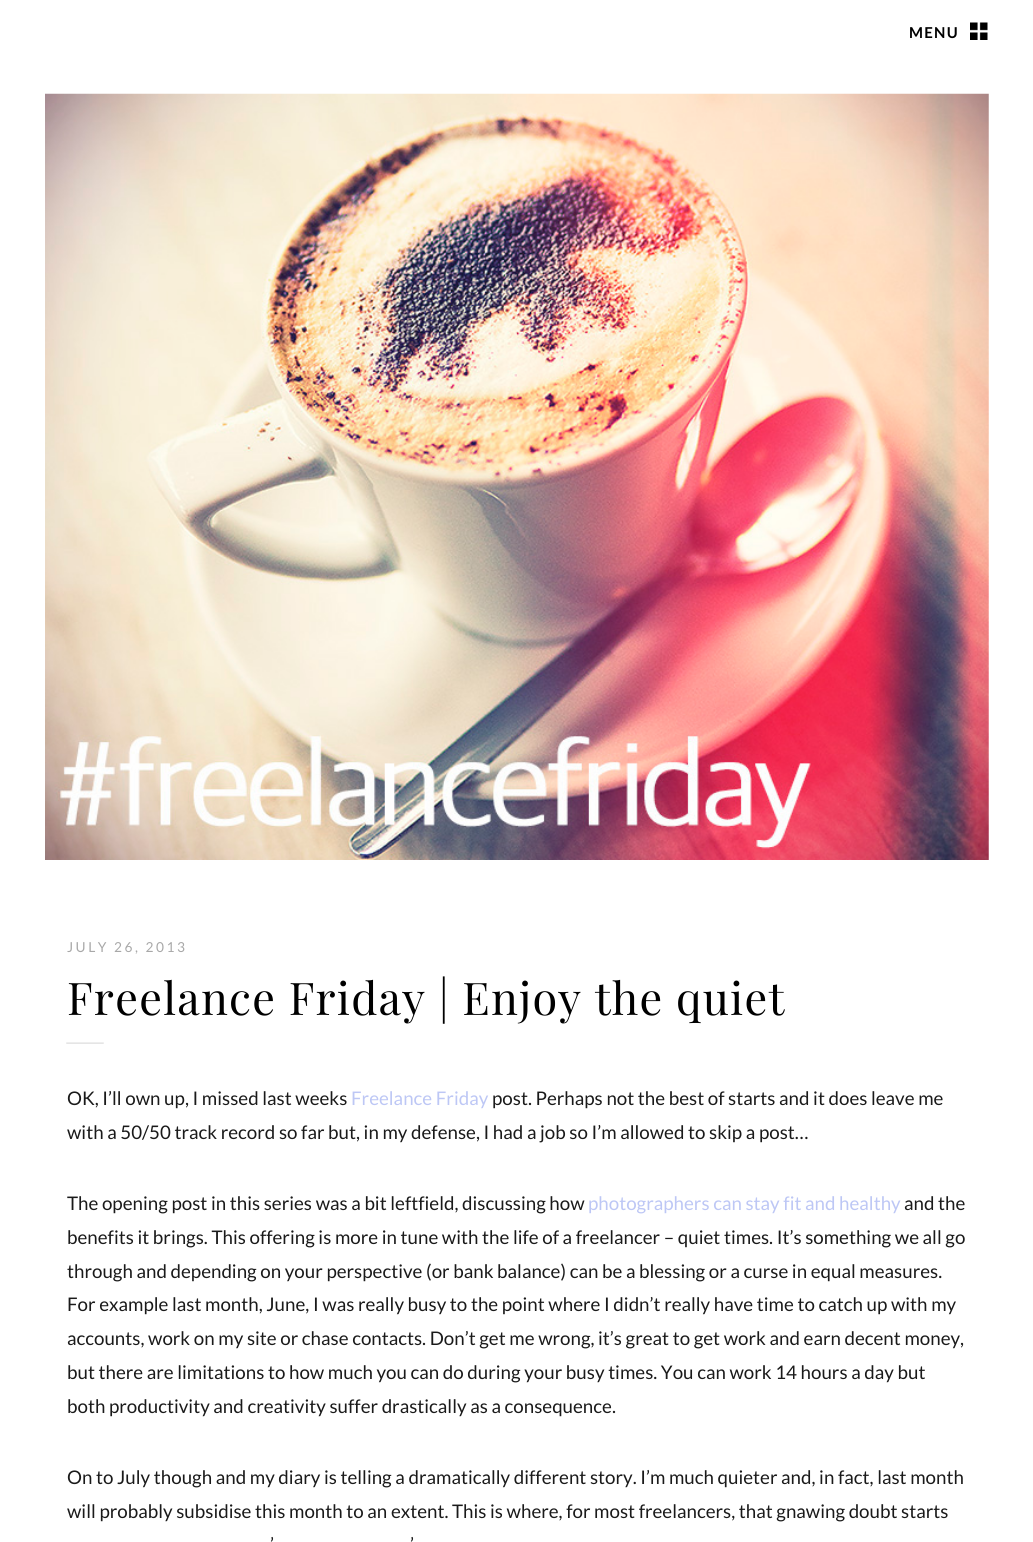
#include <cairo.h>
#include <math.h>
#include <stddef.h>

static cairo_t *ctx;

static void use_color(int r, int g, int b) {
    cairo_set_source_rgb(ctx, r / 255.0, g / 255.0, b / 255.0);
}

static void spaced_text(double x, double y, const char *s, double letter, double word) {
    cairo_move_to(ctx, x, y);
    while (*s) {
        char ch[5] = {0};
        int n = 0;
        do ch[n++] = *s++; while ((*s & 0xC0) == 0x80);
        cairo_show_text(ctx, ch);
        cairo_rel_move_to(ctx, letter + word * (*ch == ' '), 0);
    }
}

static void picture(const char *path, double x, double y, double w, double h) {
    cairo_surface_t *image = cairo_image_surface_create_from_png(path);
    cairo_save(ctx);
    cairo_set_source_surface(ctx, image, x, y);
    cairo_rectangle(ctx, x, y, w, h);
    cairo_fill(ctx);
    cairo_restore(ctx);
    cairo_surface_destroy(image);
}

int main(void) {
    cairo_surface_t *surface = cairo_image_surface_create(CAIRO_FORMAT_RGB24, 1033, 1542);
    ctx = cairo_create(surface);
    cairo_font_options_t *options = cairo_font_options_create();
    cairo_font_options_set_hint_metrics(options, CAIRO_HINT_METRICS_OFF);
    cairo_font_options_set_hint_style(options, CAIRO_HINT_STYLE_NONE);
    cairo_set_font_options(ctx, options);
    cairo_set_miter_limit(ctx, 4);
    use_color(255, 255, 255);
    cairo_paint(ctx);
    picture("img1.png", 970, 22, 18, 18);
    cairo_select_font_face(ctx, "Lato", CAIRO_FONT_SLANT_NORMAL, CAIRO_FONT_WEIGHT_BOLD);
    cairo_set_font_size(ctx, 15);
    use_color(0, 0, 0);
    spaced_text(909, 38, "MENU", 1.25, 0);
    picture("img2.png", 45, 93, 944, 767);
    cairo_select_font_face(ctx, "Lato", CAIRO_FONT_SLANT_NORMAL, CAIRO_FONT_WEIGHT_NORMAL);
    cairo_set_font_size(ctx, 13.75);
    use_color(168, 168, 168);
    spaced_text(67, 952, "JULY 26, 2013", 2.5, 0);
    picture("img3.png", 66, 1042, 38, 2);
    cairo_select_font_face(ctx, "Playfair Display", CAIRO_FONT_SLANT_NORMAL, CAIRO_FONT_WEIGHT_NORMAL);
    cairo_set_font_size(ctx, 45);
    use_color(0, 0, 0);
    spaced_text(67, 1015, "Freelance Friday | Enjoy the quiet", 1.25, 0);
    cairo_select_font_face(ctx, "Lato", CAIRO_FONT_SLANT_NORMAL, CAIRO_FONT_WEIGHT_NORMAL);
    cairo_set_font_size(ctx, 18.75);
    use_color(26, 26, 26);
    cairo_move_to(ctx, 67, 1105);
    cairo_show_text(ctx, "OK, I’ll own up, I missed last weeks");
    use_color(189, 199, 245);
    cairo_move_to(ctx, 351, 1105);
    cairo_show_text(ctx, "Freelance Friday");
    use_color(26, 26, 26);
    cairo_move_to(ctx, 492, 1105);
    cairo_show_text(ctx, "post. Perhaps not the best of starts and it does leave me");
    cairo_move_to(ctx, 67, 1139);
    cairo_show_text(ctx, "with a 50/50 track record so far but, in my defense, I had a job so I’m allowed to skip a post…");
    cairo_move_to(ctx, 67, 1210);
    cairo_show_text(ctx, "The opening post in this series was a bit leftfield, discussing how");
    use_color(189, 199, 245);
    cairo_move_to(ctx, 588, 1210);
    cairo_show_text(ctx, "photographers can stay fit and healthy");
    use_color(26, 26, 26);
    cairo_move_to(ctx, 904, 1210);
    cairo_show_text(ctx, "and the");
    cairo_move_to(ctx, 67, 1244);
    cairo_show_text(ctx, "benefits it brings. This offering is more in tune with the life of a freelancer – quiet times. It’s something we all go");
    cairo_move_to(ctx, 67, 1278);
    cairo_show_text(ctx, "through and depending on your perspective (or bank balance) can be a blessing or a curse in equal measures.");
    cairo_move_to(ctx, 67, 1311);
    cairo_show_text(ctx, "For example last month, June, I was really busy to the point where I didn’t really have time to catch up with my");
    cairo_move_to(ctx, 67, 1345);
    cairo_show_text(ctx, "accounts, work on my site or chase contacts. Don’t get me wrong, it’s great to get work and earn decent money,");
    cairo_move_to(ctx, 67, 1379);
    cairo_show_text(ctx, "but there are limitations to how much you can do during your busy times. You can work 14 hours a day but");
    cairo_move_to(ctx, 67, 1413);
    cairo_show_text(ctx, "both productivity and creativity suffer drastically as a consequence.");
    cairo_move_to(ctx, 67, 1484);
    cairo_show_text(ctx, "On to July though and my diary is telling a dramatically different story. I’m much quieter and, in fact, last month");
    cairo_move_to(ctx, 67, 1518);
    cairo_show_text(ctx, "will probably subsidise this month to an extent. This is where, for most freelancers, that gnawing doubt starts");
    cairo_move_to(ctx, 270, 1551);
    cairo_show_text(ctx, "’");
    cairo_move_to(ctx, 410, 1551);
    cairo_show_text(ctx, "’");
    cairo_surface_write_to_png(surface, "result.png");
    cairo_font_options_destroy(options);
    cairo_destroy(ctx);
    cairo_surface_destroy(surface);
    return 0;
}
